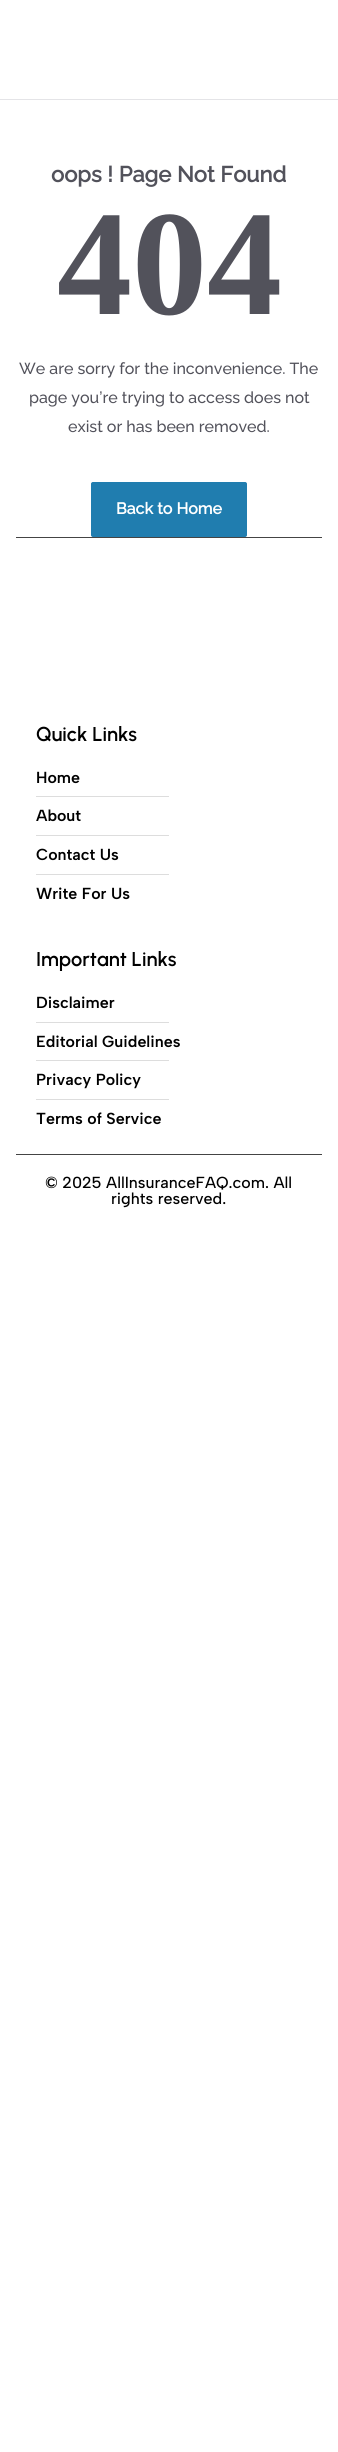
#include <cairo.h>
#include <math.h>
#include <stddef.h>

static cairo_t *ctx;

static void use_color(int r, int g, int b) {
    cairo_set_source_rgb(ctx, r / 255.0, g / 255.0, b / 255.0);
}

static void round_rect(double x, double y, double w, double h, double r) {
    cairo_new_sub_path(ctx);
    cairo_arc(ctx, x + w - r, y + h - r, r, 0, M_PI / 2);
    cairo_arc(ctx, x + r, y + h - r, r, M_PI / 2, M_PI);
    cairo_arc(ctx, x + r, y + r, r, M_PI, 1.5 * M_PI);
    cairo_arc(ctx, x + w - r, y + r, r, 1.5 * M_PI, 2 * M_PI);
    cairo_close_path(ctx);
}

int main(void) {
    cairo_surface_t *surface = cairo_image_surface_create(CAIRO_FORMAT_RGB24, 338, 2452);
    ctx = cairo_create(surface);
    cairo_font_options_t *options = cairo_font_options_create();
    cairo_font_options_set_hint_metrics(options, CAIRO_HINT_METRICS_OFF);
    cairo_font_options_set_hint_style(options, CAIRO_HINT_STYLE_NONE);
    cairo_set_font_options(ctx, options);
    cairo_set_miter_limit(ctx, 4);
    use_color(228, 228, 231);
    cairo_paint(ctx);
    use_color(255, 255, 255);
    cairo_rectangle(ctx, 0, 0, 338, 99);
    cairo_fill(ctx);
    cairo_rectangle(ctx, 0, 100, 338, 2352);
    cairo_fill(ctx);
    cairo_select_font_face(ctx, "Raleway", CAIRO_FONT_SLANT_NORMAL, CAIRO_FONT_WEIGHT_BOLD);
    cairo_set_font_size(ctx, 22);
    use_color(82, 82, 91);
    cairo_move_to(ctx, 51, 182);
    cairo_show_text(ctx, "oops ! Page Not Found");
    cairo_select_font_face(ctx, "Liberation Serif", CAIRO_FONT_SLANT_NORMAL, CAIRO_FONT_WEIGHT_BOLD);
    cairo_set_font_size(ctx, 150);
    cairo_move_to(ctx, 57, 314);
    cairo_show_text(ctx, "404");
    cairo_select_font_face(ctx, "Raleway Thin", CAIRO_FONT_SLANT_NORMAL, CAIRO_FONT_WEIGHT_NORMAL);
    cairo_set_font_size(ctx, 16);
    cairo_move_to(ctx, 19, 374);
    cairo_show_text(ctx, "We are sorry for the inconvenience. The");
    cairo_move_to(ctx, 29, 403);
    cairo_show_text(ctx, "page you’re trying to access does not");
    cairo_move_to(ctx, 68, 432);
    cairo_show_text(ctx, "exist or has been removed.");
    use_color(32, 125, 175);
    round_rect(91.5, 482.5, 155, 54, 1.5);
    cairo_fill_preserve(ctx);
    cairo_set_line_width(ctx, 1);
    cairo_stroke(ctx);
    cairo_select_font_face(ctx, "Raleway", CAIRO_FONT_SLANT_NORMAL, CAIRO_FONT_WEIGHT_BOLD);
    use_color(255, 255, 255);
    cairo_move_to(ctx, 116, 514);
    cairo_show_text(ctx, "Back to Home");
    use_color(68, 68, 68);
    cairo_rectangle(ctx, 16, 537, 306, 1);
    cairo_fill(ctx);
    cairo_select_font_face(ctx, "Urbanist SemiBold", CAIRO_FONT_SLANT_NORMAL, CAIRO_FONT_WEIGHT_NORMAL);
    cairo_set_font_size(ctx, 20);
    use_color(0, 0, 0);
    cairo_move_to(ctx, 36, 741);
    cairo_show_text(ctx, "Quick Links");
    cairo_select_font_face(ctx, "Albert Sans SemiBold", CAIRO_FONT_SLANT_NORMAL, CAIRO_FONT_WEIGHT_NORMAL);
    cairo_set_font_size(ctx, 16);
    cairo_move_to(ctx, 36, 783);
    cairo_show_text(ctx, "Home");
    use_color(221, 221, 221);
    cairo_rectangle(ctx, 36, 796, 133, 1);
    cairo_fill(ctx);
    use_color(0, 0, 0);
    cairo_move_to(ctx, 36, 821);
    cairo_show_text(ctx, "About");
    use_color(221, 221, 221);
    cairo_rectangle(ctx, 36, 835, 133, 1);
    cairo_fill(ctx);
    use_color(0, 0, 0);
    cairo_move_to(ctx, 36, 860);
    cairo_show_text(ctx, "Contact Us");
    use_color(221, 221, 221);
    cairo_rectangle(ctx, 36, 874, 133, 1);
    cairo_fill(ctx);
    use_color(0, 0, 0);
    cairo_move_to(ctx, 36, 899);
    cairo_show_text(ctx, "Write For Us");
    cairo_select_font_face(ctx, "Urbanist SemiBold", CAIRO_FONT_SLANT_NORMAL, CAIRO_FONT_WEIGHT_NORMAL);
    cairo_set_font_size(ctx, 20);
    cairo_move_to(ctx, 36, 966);
    cairo_show_text(ctx, "Important Links");
    cairo_select_font_face(ctx, "Albert Sans SemiBold", CAIRO_FONT_SLANT_NORMAL, CAIRO_FONT_WEIGHT_NORMAL);
    cairo_set_font_size(ctx, 16);
    cairo_move_to(ctx, 36, 1008);
    cairo_show_text(ctx, "Disclaimer");
    use_color(221, 221, 221);
    cairo_rectangle(ctx, 36, 1022, 133, 1);
    cairo_fill(ctx);
    use_color(0, 0, 0);
    cairo_move_to(ctx, 36, 1047);
    cairo_show_text(ctx, "Editorial Guidelines");
    use_color(221, 221, 221);
    cairo_rectangle(ctx, 36, 1060, 133, 1);
    cairo_fill(ctx);
    use_color(0, 0, 0);
    cairo_move_to(ctx, 36, 1085);
    cairo_show_text(ctx, "Privacy Policy");
    use_color(221, 221, 221);
    cairo_rectangle(ctx, 36, 1099, 133, 1);
    cairo_fill(ctx);
    use_color(0, 0, 0);
    cairo_move_to(ctx, 36, 1124);
    cairo_show_text(ctx, "Terms of Service");
    use_color(68, 68, 68);
    cairo_rectangle(ctx, 16, 1154, 306, 1);
    cairo_fill(ctx);
    cairo_select_font_face(ctx, "Albert Sans Medium", CAIRO_FONT_SLANT_NORMAL, CAIRO_FONT_WEIGHT_NORMAL);
    use_color(0, 0, 0);
    cairo_move_to(ctx, 45, 1188);
    cairo_show_text(ctx, "© 2025 AllInsuranceFAQ.com. All");
    cairo_move_to(ctx, 111, 1204);
    cairo_show_text(ctx, "rights reserved.");
    cairo_surface_write_to_png(surface, "result.png");
    cairo_font_options_destroy(options);
    cairo_destroy(ctx);
    cairo_surface_destroy(surface);
    return 0;
}
